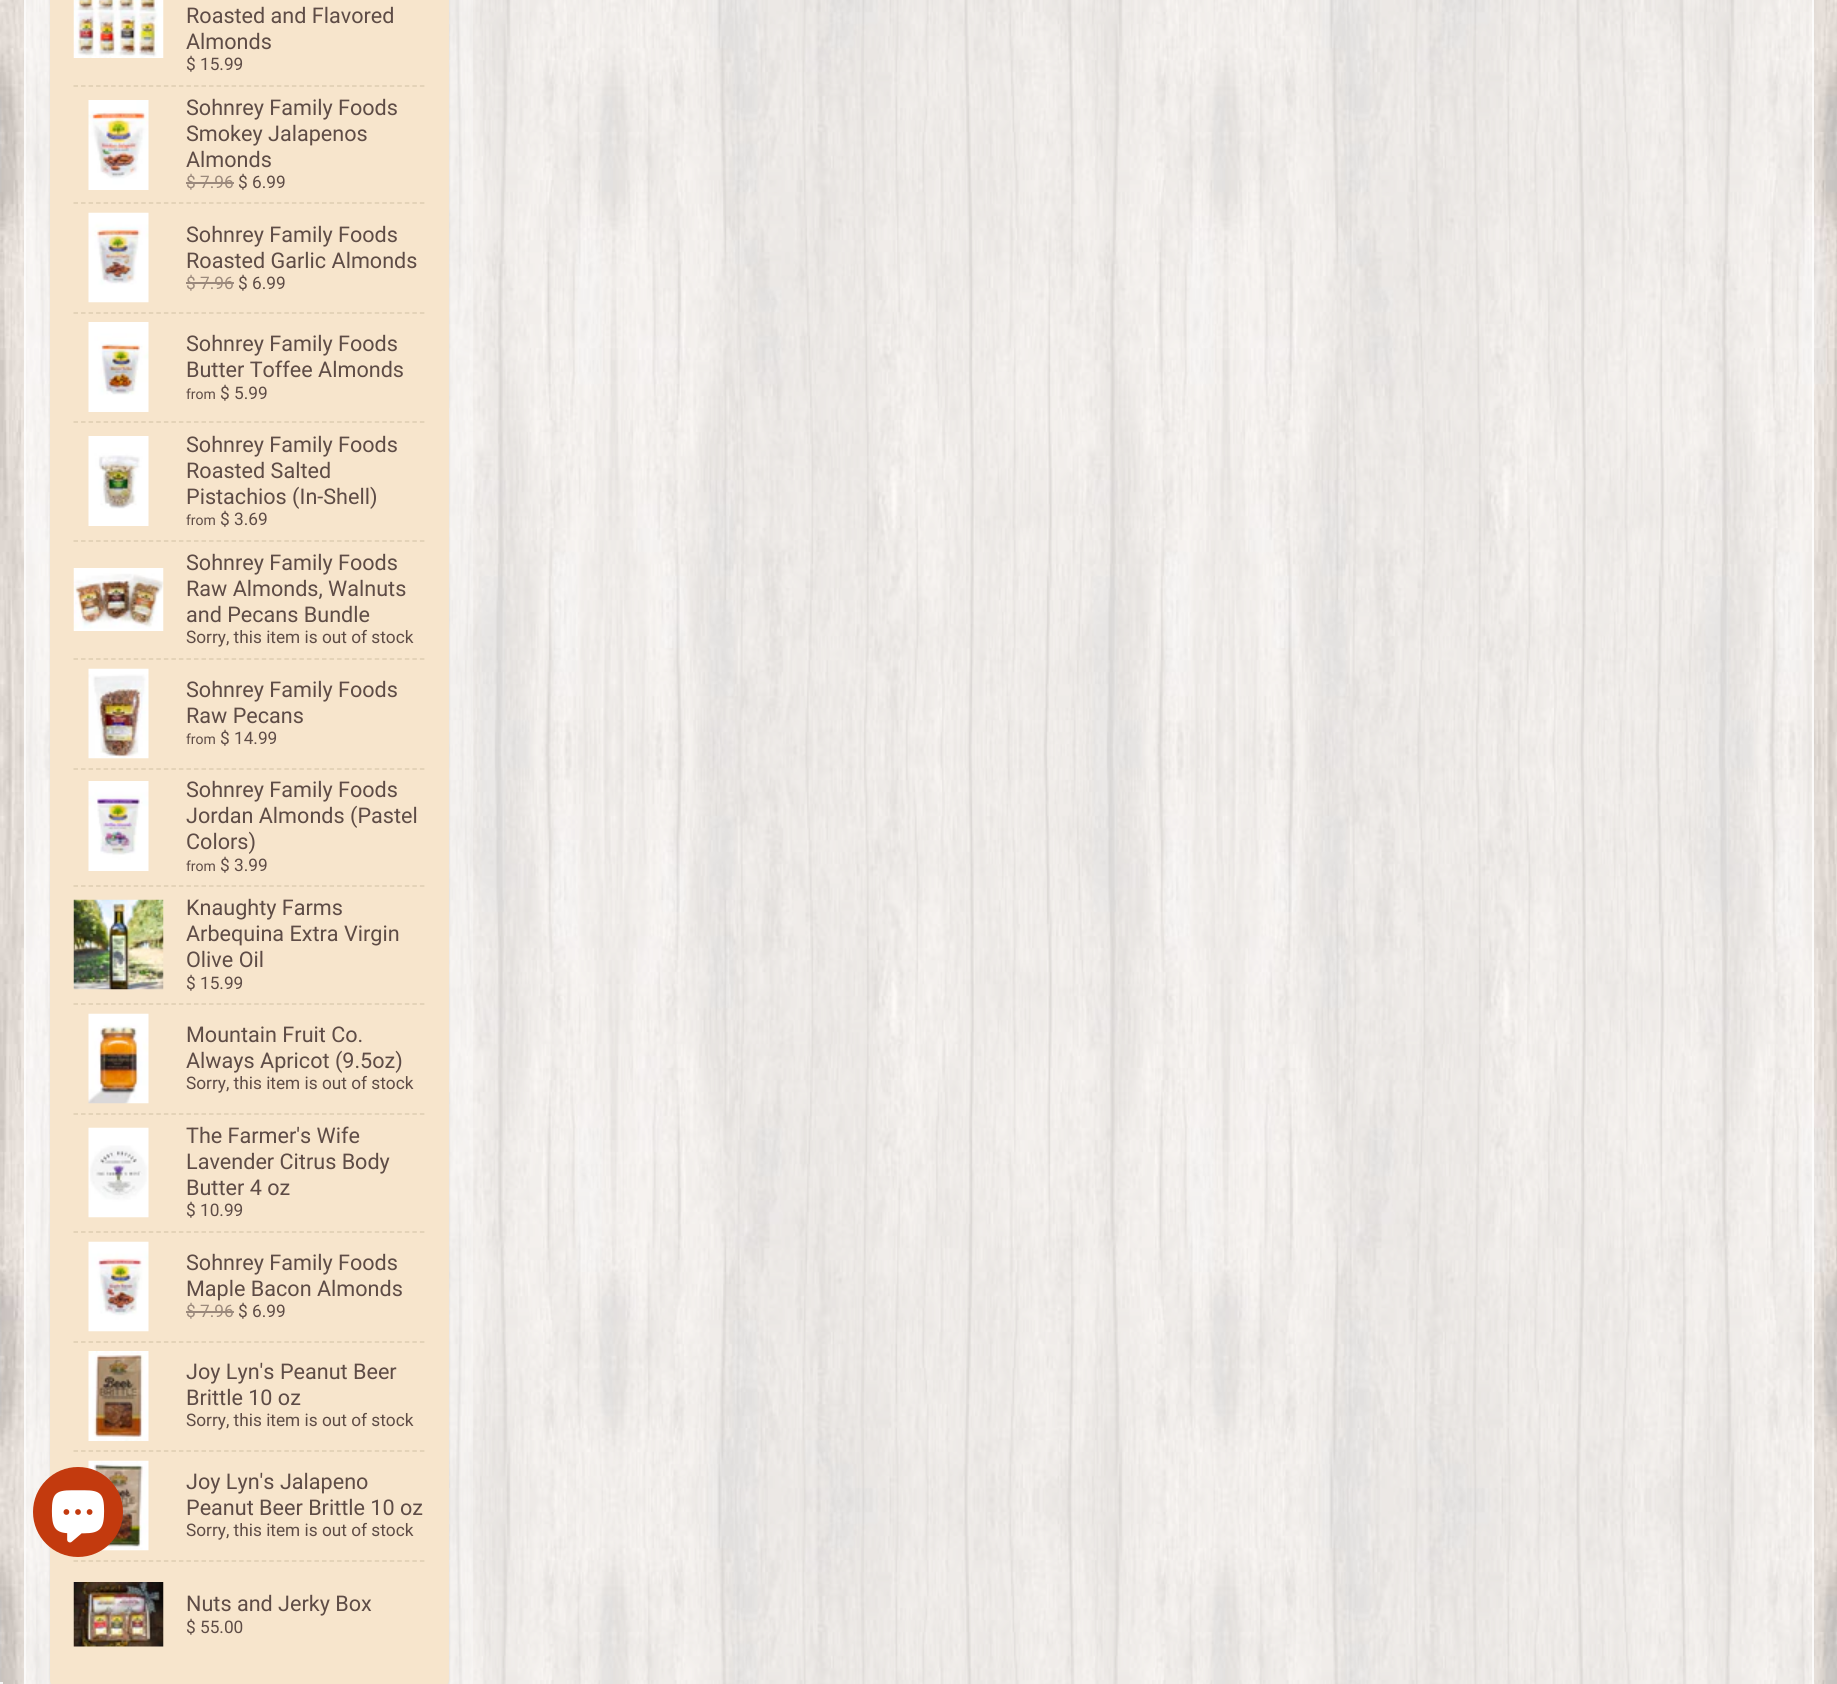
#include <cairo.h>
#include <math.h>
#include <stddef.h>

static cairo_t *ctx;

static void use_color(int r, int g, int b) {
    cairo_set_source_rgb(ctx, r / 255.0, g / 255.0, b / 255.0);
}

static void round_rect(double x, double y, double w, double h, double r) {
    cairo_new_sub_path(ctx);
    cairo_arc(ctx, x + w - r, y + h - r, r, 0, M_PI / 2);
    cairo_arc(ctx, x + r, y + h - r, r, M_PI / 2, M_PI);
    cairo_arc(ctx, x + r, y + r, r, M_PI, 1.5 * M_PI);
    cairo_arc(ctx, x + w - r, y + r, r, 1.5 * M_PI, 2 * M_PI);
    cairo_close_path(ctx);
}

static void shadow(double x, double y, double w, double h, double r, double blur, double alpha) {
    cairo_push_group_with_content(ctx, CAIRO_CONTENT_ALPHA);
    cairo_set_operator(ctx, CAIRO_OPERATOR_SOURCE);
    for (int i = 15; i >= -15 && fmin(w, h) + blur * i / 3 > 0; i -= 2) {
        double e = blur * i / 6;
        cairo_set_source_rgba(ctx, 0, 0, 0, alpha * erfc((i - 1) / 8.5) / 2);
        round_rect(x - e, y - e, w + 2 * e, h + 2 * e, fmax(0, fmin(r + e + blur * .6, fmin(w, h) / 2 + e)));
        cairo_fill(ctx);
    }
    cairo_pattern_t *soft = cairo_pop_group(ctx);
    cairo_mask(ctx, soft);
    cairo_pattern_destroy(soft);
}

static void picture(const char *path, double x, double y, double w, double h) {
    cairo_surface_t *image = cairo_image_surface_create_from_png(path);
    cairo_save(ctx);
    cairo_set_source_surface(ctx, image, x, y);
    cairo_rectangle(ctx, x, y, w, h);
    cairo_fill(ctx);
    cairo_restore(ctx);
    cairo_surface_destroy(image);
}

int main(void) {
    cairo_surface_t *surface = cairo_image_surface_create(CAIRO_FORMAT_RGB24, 1837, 1684);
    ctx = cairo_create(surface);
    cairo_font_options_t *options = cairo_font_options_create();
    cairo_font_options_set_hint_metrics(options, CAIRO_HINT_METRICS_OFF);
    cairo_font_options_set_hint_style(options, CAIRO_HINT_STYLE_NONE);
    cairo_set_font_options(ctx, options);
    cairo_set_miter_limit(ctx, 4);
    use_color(255, 255, 255);
    cairo_paint(ctx);
    picture("img1.png", 0, 0, 1837, 1684);
    cairo_rectangle(ctx, 25, -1, 1788, 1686);
    cairo_set_source_rgba(ctx, 1, 1, 1, 0.7);
    cairo_stroke(ctx);
    cairo_set_source_rgba(ctx, 1, 1, 1, 0.25);
    cairo_rectangle(ctx, 26, 0, 447, 1684);
    cairo_fill(ctx);
    use_color(0, 0, 0);
    shadow(50, -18, 399, 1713, 15, 1, 0.1);
    use_color(247, 229, 204);
    round_rect(50, -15, 399, 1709, 15);
    cairo_fill(ctx);
    picture("img16.png", 88, 1460, 61, 91);
    use_color(195, 58, 14);
    cairo_arc(ctx, 78, 1512, 45, 0, 2 * M_PI);
    cairo_fill(ctx);
    picture("img2.png", 51, 1490, 54, 53);
    picture("img3.png", 73, 0, 91, 58);
    cairo_select_font_face(ctx, "Roboto", CAIRO_FONT_SLANT_NORMAL, CAIRO_FONT_WEIGHT_NORMAL);
    cairo_set_font_size(ctx, 21.6);
    use_color(94, 76, 70);
    cairo_move_to(ctx, 186, 23);
    cairo_show_text(ctx, "Roasted and Flavored");
    cairo_move_to(ctx, 186, 49);
    cairo_show_text(ctx, "Almonds");
    cairo_set_font_size(ctx, 17.25);
    cairo_move_to(ctx, 186, 70);
    cairo_show_text(ctx, "$ 15.99");
    cairo_new_path(ctx);
    cairo_move_to(ctx, 73.5, 86);
    cairo_line_to(ctx, 424.5, 86);
    use_color(222, 204, 178);
    cairo_set_line_width(ctx, 1.5);
    cairo_set_dash(ctx, (double[]){4.5, 3.03}, 2, 0);
    cairo_stroke(ctx);
    picture("img4.png", 88, 100, 61, 90);
    cairo_set_font_size(ctx, 21.6);
    use_color(94, 76, 70);
    cairo_move_to(ctx, 186, 115);
    cairo_show_text(ctx, "Sohnrey Family Foods");
    cairo_move_to(ctx, 186, 141);
    cairo_show_text(ctx, "Smokey Jalapenos");
    cairo_move_to(ctx, 186, 167);
    cairo_show_text(ctx, "Almonds");
    cairo_set_font_size(ctx, 17.25);
    use_color(155, 137, 124);
    cairo_move_to(ctx, 186, 188);
    cairo_show_text(ctx, "$ 7.96");
    cairo_rectangle(ctx, 186, 182, 48, 2);
    cairo_fill(ctx);
    use_color(94, 76, 70);
    cairo_move_to(ctx, 238, 188);
    cairo_show_text(ctx, "$ 6.99");
    cairo_new_path(ctx);
    cairo_move_to(ctx, 73.5, 203);
    cairo_line_to(ctx, 424.5, 203);
    use_color(222, 204, 178);
    cairo_stroke(ctx);
    picture("img5.png", 88, 212, 61, 91);
    cairo_set_font_size(ctx, 21.6);
    use_color(94, 76, 70);
    cairo_move_to(ctx, 186, 242);
    cairo_show_text(ctx, "Sohnrey Family Foods");
    cairo_move_to(ctx, 186, 268);
    cairo_show_text(ctx, "Roasted Garlic Almonds");
    cairo_set_font_size(ctx, 17.25);
    use_color(155, 137, 124);
    cairo_move_to(ctx, 186, 289);
    cairo_show_text(ctx, "$ 7.96");
    cairo_rectangle(ctx, 186, 282, 48, 2);
    cairo_fill(ctx);
    use_color(94, 76, 70);
    cairo_move_to(ctx, 238, 289);
    cairo_show_text(ctx, "$ 6.99");
    cairo_new_path(ctx);
    cairo_move_to(ctx, 73.5, 313);
    cairo_line_to(ctx, 424.5, 313);
    use_color(222, 204, 178);
    cairo_stroke(ctx);
    picture("img6.png", 88, 322, 61, 90);
    cairo_set_font_size(ctx, 21.6);
    use_color(94, 76, 70);
    cairo_move_to(ctx, 186, 351);
    cairo_show_text(ctx, "Sohnrey Family Foods");
    cairo_move_to(ctx, 186, 377);
    cairo_show_text(ctx, "Butter Toffee Almonds");
    cairo_set_font_size(ctx, 14);
    cairo_move_to(ctx, 186, 399);
    cairo_show_text(ctx, "from");
    cairo_set_font_size(ctx, 17.25);
    cairo_move_to(ctx, 220, 399);
    cairo_show_text(ctx, "$ 5.99");
    cairo_new_path(ctx);
    cairo_move_to(ctx, 73.5, 422);
    cairo_line_to(ctx, 424.5, 422);
    use_color(222, 204, 178);
    cairo_stroke(ctx);
    picture("img7.png", 88, 436, 61, 90);
    cairo_set_font_size(ctx, 21.6);
    use_color(94, 76, 70);
    cairo_move_to(ctx, 186, 452);
    cairo_show_text(ctx, "Sohnrey Family Foods");
    cairo_move_to(ctx, 186, 478);
    cairo_show_text(ctx, "Roasted Salted");
    cairo_move_to(ctx, 186, 504);
    cairo_show_text(ctx, "Pistachios (In-Shell)");
    cairo_set_font_size(ctx, 14);
    cairo_move_to(ctx, 186, 525);
    cairo_show_text(ctx, "from");
    cairo_set_font_size(ctx, 17.25);
    cairo_move_to(ctx, 220, 525);
    cairo_show_text(ctx, "$ 3.69");
    cairo_new_path(ctx);
    cairo_move_to(ctx, 73.5, 541);
    cairo_line_to(ctx, 424.5, 541);
    use_color(222, 204, 178);
    cairo_stroke(ctx);
    picture("img8.png", 73, 568, 91, 63);
    cairo_set_font_size(ctx, 21.6);
    use_color(94, 76, 70);
    cairo_move_to(ctx, 186, 570);
    cairo_show_text(ctx, "Sohnrey Family Foods");
    cairo_move_to(ctx, 186, 596);
    cairo_show_text(ctx, "Raw Almonds, Walnuts");
    cairo_move_to(ctx, 186, 622);
    cairo_show_text(ctx, "and Pecans Bundle");
    cairo_set_font_size(ctx, 17.25);
    cairo_move_to(ctx, 186, 643);
    cairo_show_text(ctx, "Sorry, this item is out of stock");
    cairo_new_path(ctx);
    cairo_move_to(ctx, 73.5, 659);
    cairo_line_to(ctx, 424.5, 659);
    use_color(222, 204, 178);
    cairo_stroke(ctx);
    picture("img9.png", 88, 668, 61, 91);
    cairo_set_font_size(ctx, 21.6);
    use_color(94, 76, 70);
    cairo_move_to(ctx, 186, 697);
    cairo_show_text(ctx, "Sohnrey Family Foods");
    cairo_move_to(ctx, 186, 723);
    cairo_show_text(ctx, "Raw Pecans");
    cairo_set_font_size(ctx, 14);
    cairo_move_to(ctx, 186, 744);
    cairo_show_text(ctx, "from");
    cairo_set_font_size(ctx, 17.25);
    cairo_move_to(ctx, 220, 744);
    cairo_show_text(ctx, "$ 14.99");
    cairo_new_path(ctx);
    cairo_move_to(ctx, 73.5, 769);
    cairo_line_to(ctx, 424.5, 769);
    use_color(222, 204, 178);
    cairo_stroke(ctx);
    picture("img10.png", 88, 781, 61, 90);
    cairo_set_font_size(ctx, 21.6);
    use_color(94, 76, 70);
    cairo_move_to(ctx, 186, 797);
    cairo_show_text(ctx, "Sohnrey Family Foods");
    cairo_move_to(ctx, 186, 823);
    cairo_show_text(ctx, "Jordan Almonds (Pastel");
    cairo_move_to(ctx, 186, 849);
    cairo_show_text(ctx, "Colors)");
    cairo_set_font_size(ctx, 14);
    cairo_move_to(ctx, 186, 871);
    cairo_show_text(ctx, "from");
    cairo_set_font_size(ctx, 17.25);
    cairo_move_to(ctx, 220, 871);
    cairo_show_text(ctx, "$ 3.99");
    cairo_new_path(ctx);
    cairo_move_to(ctx, 73.5, 886);
    cairo_line_to(ctx, 424.5, 886);
    use_color(222, 204, 178);
    cairo_stroke(ctx);
    picture("img11.png", 73, 899, 91, 91);
    cairo_set_font_size(ctx, 21.6);
    use_color(94, 76, 70);
    cairo_move_to(ctx, 186, 915);
    cairo_show_text(ctx, "Knaughty Farms");
    cairo_move_to(ctx, 186, 941);
    cairo_show_text(ctx, "Arbequina Extra Virgin");
    cairo_move_to(ctx, 186, 967);
    cairo_show_text(ctx, "Olive Oil");
    cairo_set_font_size(ctx, 17.25);
    cairo_move_to(ctx, 186, 989);
    cairo_show_text(ctx, "$ 15.99");
    cairo_new_path(ctx);
    cairo_move_to(ctx, 73.5, 1004);
    cairo_line_to(ctx, 424.5, 1004);
    use_color(222, 204, 178);
    cairo_stroke(ctx);
    picture("img12.png", 88, 1013, 61, 91);
    cairo_set_font_size(ctx, 21.6);
    use_color(94, 76, 70);
    cairo_move_to(ctx, 186, 1042);
    cairo_show_text(ctx, "Mountain Fruit Co.");
    cairo_move_to(ctx, 186, 1068);
    cairo_show_text(ctx, "Always Apricot (9.5oz)");
    cairo_set_font_size(ctx, 17.25);
    cairo_move_to(ctx, 186, 1089);
    cairo_show_text(ctx, "Sorry, this item is out of stock");
    cairo_new_path(ctx);
    cairo_move_to(ctx, 73.5, 1114);
    cairo_line_to(ctx, 424.5, 1114);
    use_color(222, 204, 178);
    cairo_stroke(ctx);
    picture("img13.png", 88, 1127, 61, 91);
    cairo_set_font_size(ctx, 21.6);
    use_color(94, 76, 70);
    cairo_move_to(ctx, 186, 1143);
    cairo_show_text(ctx, "The Farmer's Wife");
    cairo_move_to(ctx, 186, 1169);
    cairo_show_text(ctx, "Lavender Citrus Body");
    cairo_move_to(ctx, 186, 1195);
    cairo_show_text(ctx, "Butter 4 oz");
    cairo_set_font_size(ctx, 17.25);
    cairo_move_to(ctx, 186, 1216);
    cairo_show_text(ctx, "$ 10.99");
    cairo_new_path(ctx);
    cairo_move_to(ctx, 73.5, 1232);
    cairo_line_to(ctx, 424.5, 1232);
    use_color(222, 204, 178);
    cairo_stroke(ctx);
    picture("img14.png", 88, 1241, 61, 91);
    cairo_set_font_size(ctx, 21.6);
    use_color(94, 76, 70);
    cairo_move_to(ctx, 186, 1270);
    cairo_show_text(ctx, "Sohnrey Family Foods");
    cairo_move_to(ctx, 186, 1296);
    cairo_show_text(ctx, "Maple Bacon Almonds");
    cairo_set_font_size(ctx, 17.25);
    use_color(155, 137, 124);
    cairo_move_to(ctx, 186, 1317);
    cairo_show_text(ctx, "$ 7.96");
    cairo_rectangle(ctx, 186, 1311, 48, 2);
    cairo_fill(ctx);
    use_color(94, 76, 70);
    cairo_move_to(ctx, 238, 1317);
    cairo_show_text(ctx, "$ 6.99");
    cairo_new_path(ctx);
    cairo_move_to(ctx, 73.5, 1342);
    cairo_line_to(ctx, 424.5, 1342);
    use_color(222, 204, 178);
    cairo_stroke(ctx);
    picture("img15.png", 88, 1351, 61, 90);
    cairo_set_font_size(ctx, 21.6);
    use_color(94, 76, 70);
    cairo_move_to(ctx, 186, 1379);
    cairo_show_text(ctx, "Joy Lyn's Peanut Beer");
    cairo_move_to(ctx, 186, 1405);
    cairo_show_text(ctx, "Brittle 10 oz");
    cairo_set_font_size(ctx, 17.25);
    cairo_move_to(ctx, 186, 1426);
    cairo_show_text(ctx, "Sorry, this item is out of stock");
    cairo_new_path(ctx);
    cairo_move_to(ctx, 73.5, 1451);
    cairo_line_to(ctx, 424.5, 1451);
    use_color(222, 204, 178);
    cairo_stroke(ctx);
    cairo_set_font_size(ctx, 21.6);
    use_color(94, 76, 70);
    cairo_move_to(ctx, 186, 1489);
    cairo_show_text(ctx, "Joy Lyn's Jalapeno");
    cairo_move_to(ctx, 186, 1515);
    cairo_show_text(ctx, "Peanut Beer Brittle 10 oz");
    cairo_set_font_size(ctx, 17.25);
    cairo_move_to(ctx, 186, 1536);
    cairo_show_text(ctx, "Sorry, this item is out of stock");
    cairo_new_path(ctx);
    cairo_move_to(ctx, 73.5, 1561);
    cairo_line_to(ctx, 424.5, 1561);
    use_color(222, 204, 178);
    cairo_stroke(ctx);
    picture("img17.png", 73, 1582, 91, 65);
    cairo_set_font_size(ctx, 21.6);
    use_color(94, 76, 70);
    cairo_move_to(ctx, 186, 1611);
    cairo_show_text(ctx, "Nuts and Jerky Box");
    cairo_set_font_size(ctx, 17.25);
    cairo_move_to(ctx, 186, 1633);
    cairo_show_text(ctx, "$ 55.00");
    use_color(245, 245, 245);
    cairo_rectangle(ctx, 0, 1682, 3, 2);
    cairo_fill(ctx);
    cairo_surface_write_to_png(surface, "result.png");
    cairo_font_options_destroy(options);
    cairo_destroy(ctx);
    cairo_surface_destroy(surface);
    return 0;
}
